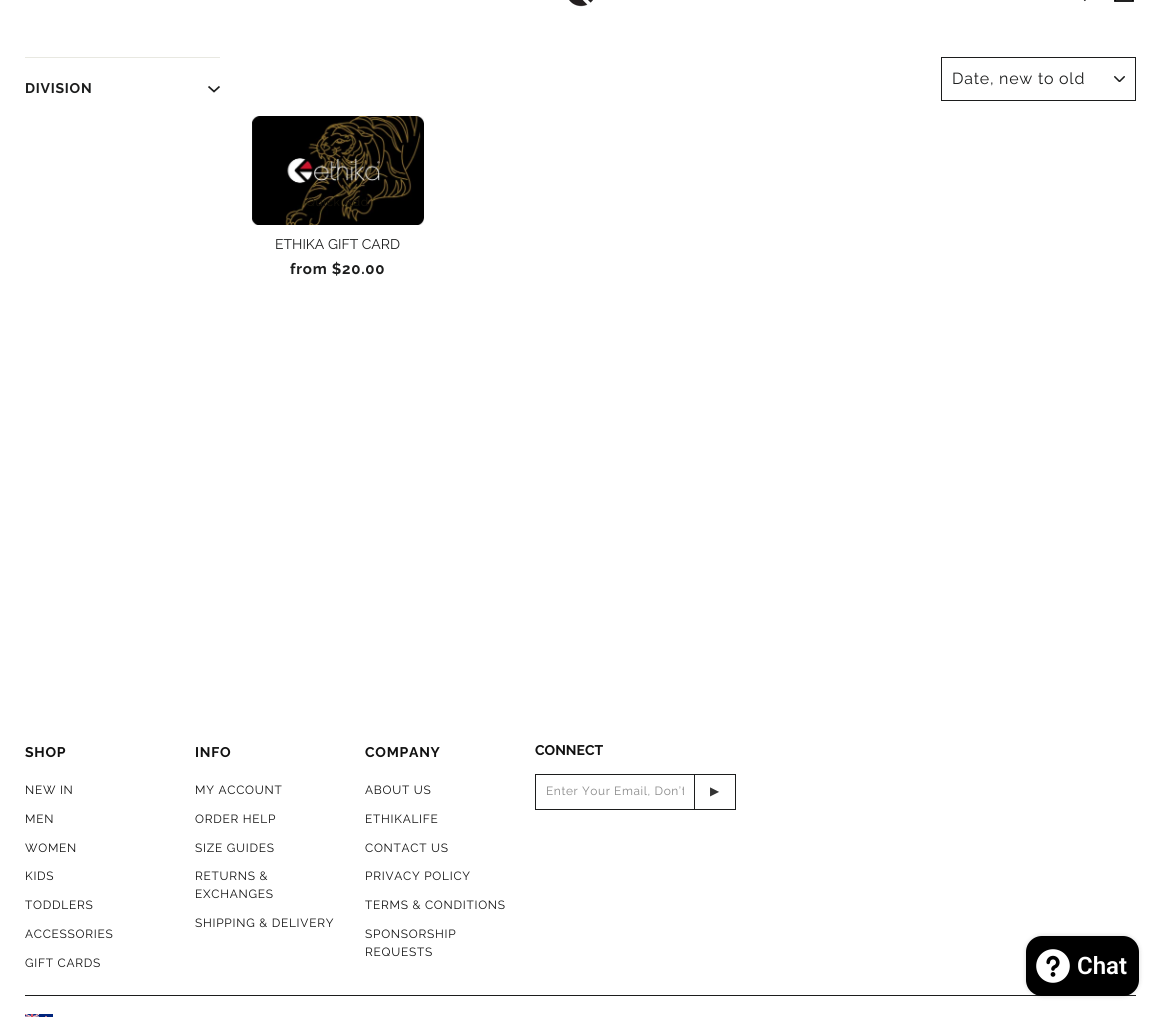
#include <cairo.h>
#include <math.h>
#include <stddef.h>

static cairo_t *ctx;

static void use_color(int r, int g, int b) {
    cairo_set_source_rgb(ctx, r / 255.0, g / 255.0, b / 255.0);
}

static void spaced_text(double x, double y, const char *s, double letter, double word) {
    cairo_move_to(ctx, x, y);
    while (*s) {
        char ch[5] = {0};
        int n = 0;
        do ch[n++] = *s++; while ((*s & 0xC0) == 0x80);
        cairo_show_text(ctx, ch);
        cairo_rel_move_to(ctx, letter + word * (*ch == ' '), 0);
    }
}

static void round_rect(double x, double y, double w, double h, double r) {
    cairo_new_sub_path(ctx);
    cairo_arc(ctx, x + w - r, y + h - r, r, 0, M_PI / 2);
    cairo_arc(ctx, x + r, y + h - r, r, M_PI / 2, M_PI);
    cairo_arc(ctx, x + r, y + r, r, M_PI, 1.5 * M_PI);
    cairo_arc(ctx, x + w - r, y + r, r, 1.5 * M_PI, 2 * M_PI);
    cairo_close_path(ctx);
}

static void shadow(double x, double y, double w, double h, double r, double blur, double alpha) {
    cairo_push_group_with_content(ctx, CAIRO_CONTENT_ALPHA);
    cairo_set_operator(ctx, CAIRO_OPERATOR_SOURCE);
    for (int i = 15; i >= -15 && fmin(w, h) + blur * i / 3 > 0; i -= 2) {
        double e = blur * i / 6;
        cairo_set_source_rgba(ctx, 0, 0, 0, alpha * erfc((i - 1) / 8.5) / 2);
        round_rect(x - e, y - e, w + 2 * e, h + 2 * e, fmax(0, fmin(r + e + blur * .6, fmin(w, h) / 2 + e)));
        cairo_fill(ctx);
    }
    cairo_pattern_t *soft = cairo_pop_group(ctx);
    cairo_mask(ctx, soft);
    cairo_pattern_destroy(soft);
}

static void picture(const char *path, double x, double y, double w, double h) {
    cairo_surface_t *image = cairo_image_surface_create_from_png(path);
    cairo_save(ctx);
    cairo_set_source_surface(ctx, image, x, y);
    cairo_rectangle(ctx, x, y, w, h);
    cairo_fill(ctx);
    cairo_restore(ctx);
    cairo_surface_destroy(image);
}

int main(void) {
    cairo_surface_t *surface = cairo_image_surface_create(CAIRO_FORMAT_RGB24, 1161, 1017);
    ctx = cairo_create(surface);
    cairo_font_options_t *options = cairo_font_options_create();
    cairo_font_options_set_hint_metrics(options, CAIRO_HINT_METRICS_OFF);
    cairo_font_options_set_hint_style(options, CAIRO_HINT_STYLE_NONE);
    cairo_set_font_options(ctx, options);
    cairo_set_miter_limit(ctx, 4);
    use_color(255, 255, 255);
    cairo_paint(ctx);
    picture("img1.png", 569, 0, 24, 7);
    cairo_new_path(ctx);
    cairo_move_to(ctx, 1082.5, -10.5);
    cairo_curve_to(ctx, 1082.5, 0, 1066.5, 0, 1066.5, -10.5);
    cairo_curve_to(ctx, 1066.5, -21, 1082.5, -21, 1082.5, -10.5);
    cairo_close_path(ctx);
    cairo_move_to(ctx, 1085.5, 0.5);
    cairo_line_to(ctx, 1080.5, -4.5);
    cairo_move_to(ctx, 1115, -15);
    cairo_line_to(ctx, 1133, -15);
    cairo_line_to(ctx, 1133, 1);
    cairo_line_to(ctx, 1115, 1);
    cairo_close_path(ctx);
    use_color(0, 0, 0);
    cairo_set_line_width(ctx, 1.8);
    cairo_stroke(ctx);
    use_color(232, 232, 225);
    cairo_rectangle(ctx, 25, 57, 195, 1);
    cairo_fill(ctx);
    cairo_select_font_face(ctx, "Raleway", CAIRO_FONT_SLANT_NORMAL, CAIRO_FONT_WEIGHT_BOLD);
    cairo_set_font_size(ctx, 14);
    use_color(28, 29, 29);
    spaced_text(25, 93, "DIVISION", 0.75, 0);
    cairo_new_path(ctx);
    cairo_move_to(ctx, 208.5, 86.5);
    cairo_line_to(ctx, 214, 91.5);
    cairo_line_to(ctx, 219.5, 86.5);
    cairo_set_line_width(ctx, 1.7);
    cairo_stroke(ctx);
    picture("img2.png", 1114, 76, 11, 6);
    cairo_rectangle(ctx, 941.5, 57.5, 194, 43);
    cairo_set_line_width(ctx, 1);
    cairo_stroke(ctx);
    cairo_select_font_face(ctx, "Raleway", CAIRO_FONT_SLANT_NORMAL, CAIRO_FONT_WEIGHT_NORMAL);
    cairo_set_font_size(ctx, 16);
    spaced_text(952, 84, "Date, new to old", 0.75, 0);
    picture("img3.png", 252, 116, 172, 109);
    cairo_set_font_size(ctx, 11.9);
    use_color(21, 17, 9);
    spaced_text(306, 206, "Quick Add", 0.6, 0);
    cairo_set_font_size(ctx, 14);
    use_color(28, 29, 29);
    cairo_move_to(ctx, 275, 249);
    cairo_show_text(ctx, "ETHIKA GIFT CARD");
    cairo_select_font_face(ctx, "Raleway", CAIRO_FONT_SLANT_NORMAL, CAIRO_FONT_WEIGHT_BOLD);
    cairo_set_font_size(ctx, 15);
    spaced_text(290, 274, "from $20.00", 0.75, 0);
    cairo_set_font_size(ctx, 14);
    use_color(17, 17, 17);
    spaced_text(25, 757, "SHOP", 0.75, 0);
    cairo_select_font_face(ctx, "Raleway", CAIRO_FONT_SLANT_NORMAL, CAIRO_FONT_WEIGHT_NORMAL);
    cairo_set_font_size(ctx, 11.9);
    spaced_text(25, 794, "NEW IN", 0.75, 0);
    spaced_text(25, 823, "MEN", 0.75, 0);
    spaced_text(25, 852, "WOMEN", 0.75, 0);
    spaced_text(25, 880, "KIDS", 0.75, 0);
    spaced_text(25, 909, "TODDLERS", 0.75, 0);
    spaced_text(25, 938, "ACCESSORIES", 0.75, 0);
    spaced_text(25, 967, "GIFT CARDS", 0.75, 0);
    cairo_select_font_face(ctx, "Raleway", CAIRO_FONT_SLANT_NORMAL, CAIRO_FONT_WEIGHT_BOLD);
    cairo_set_font_size(ctx, 14);
    spaced_text(195, 757, "INFO", 0.75, 0);
    cairo_select_font_face(ctx, "Raleway", CAIRO_FONT_SLANT_NORMAL, CAIRO_FONT_WEIGHT_NORMAL);
    cairo_set_font_size(ctx, 11.9);
    spaced_text(195, 794, "MY ACCOUNT", 0.75, 0);
    spaced_text(195, 823, "ORDER HELP", 0.75, 0);
    spaced_text(195, 852, "SIZE GUIDES", 0.75, 0);
    spaced_text(195, 880, "RETURNS &", 0.75, 0);
    spaced_text(195, 898, "EXCHANGES", 0.75, 0);
    spaced_text(195, 927, "SHIPPING & DELIVERY", 0.75, 0);
    cairo_select_font_face(ctx, "Raleway", CAIRO_FONT_SLANT_NORMAL, CAIRO_FONT_WEIGHT_BOLD);
    cairo_set_font_size(ctx, 14);
    spaced_text(365, 757, "COMPANY", 0.75, 0);
    cairo_select_font_face(ctx, "Raleway", CAIRO_FONT_SLANT_NORMAL, CAIRO_FONT_WEIGHT_NORMAL);
    cairo_set_font_size(ctx, 11.9);
    spaced_text(365, 794, "ABOUT US", 0.75, 0);
    spaced_text(365, 823, "ETHIKALIFE", 0.75, 0);
    spaced_text(365, 852, "CONTACT US", 0.75, 0);
    spaced_text(365, 880, "PRIVACY POLICY", 0.75, 0);
    spaced_text(365, 909, "TERMS & CONDITIONS", 0.75, 0);
    spaced_text(365, 938, "SPONSORSHIP", 0.75, 0);
    spaced_text(365, 956, "REQUESTS", 0.75, 0);
    cairo_select_font_face(ctx, "Raleway", CAIRO_FONT_SLANT_NORMAL, CAIRO_FONT_WEIGHT_BOLD);
    cairo_set_font_size(ctx, 14);
    cairo_move_to(ctx, 535, 755);
    cairo_show_text(ctx, "CONNECT");
    cairo_rectangle(ctx, 535.5, 774.5, 159, 35);
    use_color(28, 29, 29);
    cairo_stroke(ctx);
    cairo_save(ctx);
    cairo_rectangle(ctx, 546, 784, 138, 14);
    cairo_clip(ctx);
    cairo_select_font_face(ctx, "Raleway", CAIRO_FONT_SLANT_NORMAL, CAIRO_FONT_WEIGHT_NORMAL);
    cairo_set_font_size(ctx, 11.9);
    use_color(136, 136, 136);
    spaced_text(546, 795, "Enter Your Email, Don’t", 0.6, 0);
    cairo_restore(ctx);
    cairo_rectangle(ctx, 695, 774, 41, 1);
    cairo_fill(ctx);
    cairo_rectangle(ctx, 735, 774, 1, 36);
    cairo_fill(ctx);
    cairo_rectangle(ctx, 695, 809, 41, 1);
    cairo_fill(ctx);
    cairo_select_font_face(ctx, "DejaVu Sans", CAIRO_FONT_SLANT_NORMAL, CAIRO_FONT_WEIGHT_NORMAL);
    cairo_set_font_size(ctx, 11.9);
    use_color(51, 51, 51);
    spaced_text(710, 795, "▶", 0.6, 0);
    use_color(28, 29, 29);
    cairo_rectangle(ctx, 25, 995, 1111, 1);
    cairo_fill(ctx);
    picture("img4.png", 25, 1014, 28, 3);
    use_color(0, 0, 0);
    shadow(1026, 936, 113, 60, 16, 2.5, 0.15);
    use_color(0, 0, 0);
    round_rect(1026, 936, 113, 60, 16);
    cairo_fill(ctx);
    picture("img5.png", 1036, 949, 34, 34);
    cairo_select_font_face(ctx, "Roboto SemiBold", CAIRO_FONT_SLANT_NORMAL, CAIRO_FONT_WEIGHT_NORMAL);
    cairo_set_font_size(ctx, 24);
    use_color(255, 255, 255);
    cairo_move_to(ctx, 1077, 974);
    cairo_show_text(ctx, "Chat");
    cairo_surface_write_to_png(surface, "result.png");
    cairo_font_options_destroy(options);
    cairo_destroy(ctx);
    cairo_surface_destroy(surface);
    return 0;
}
